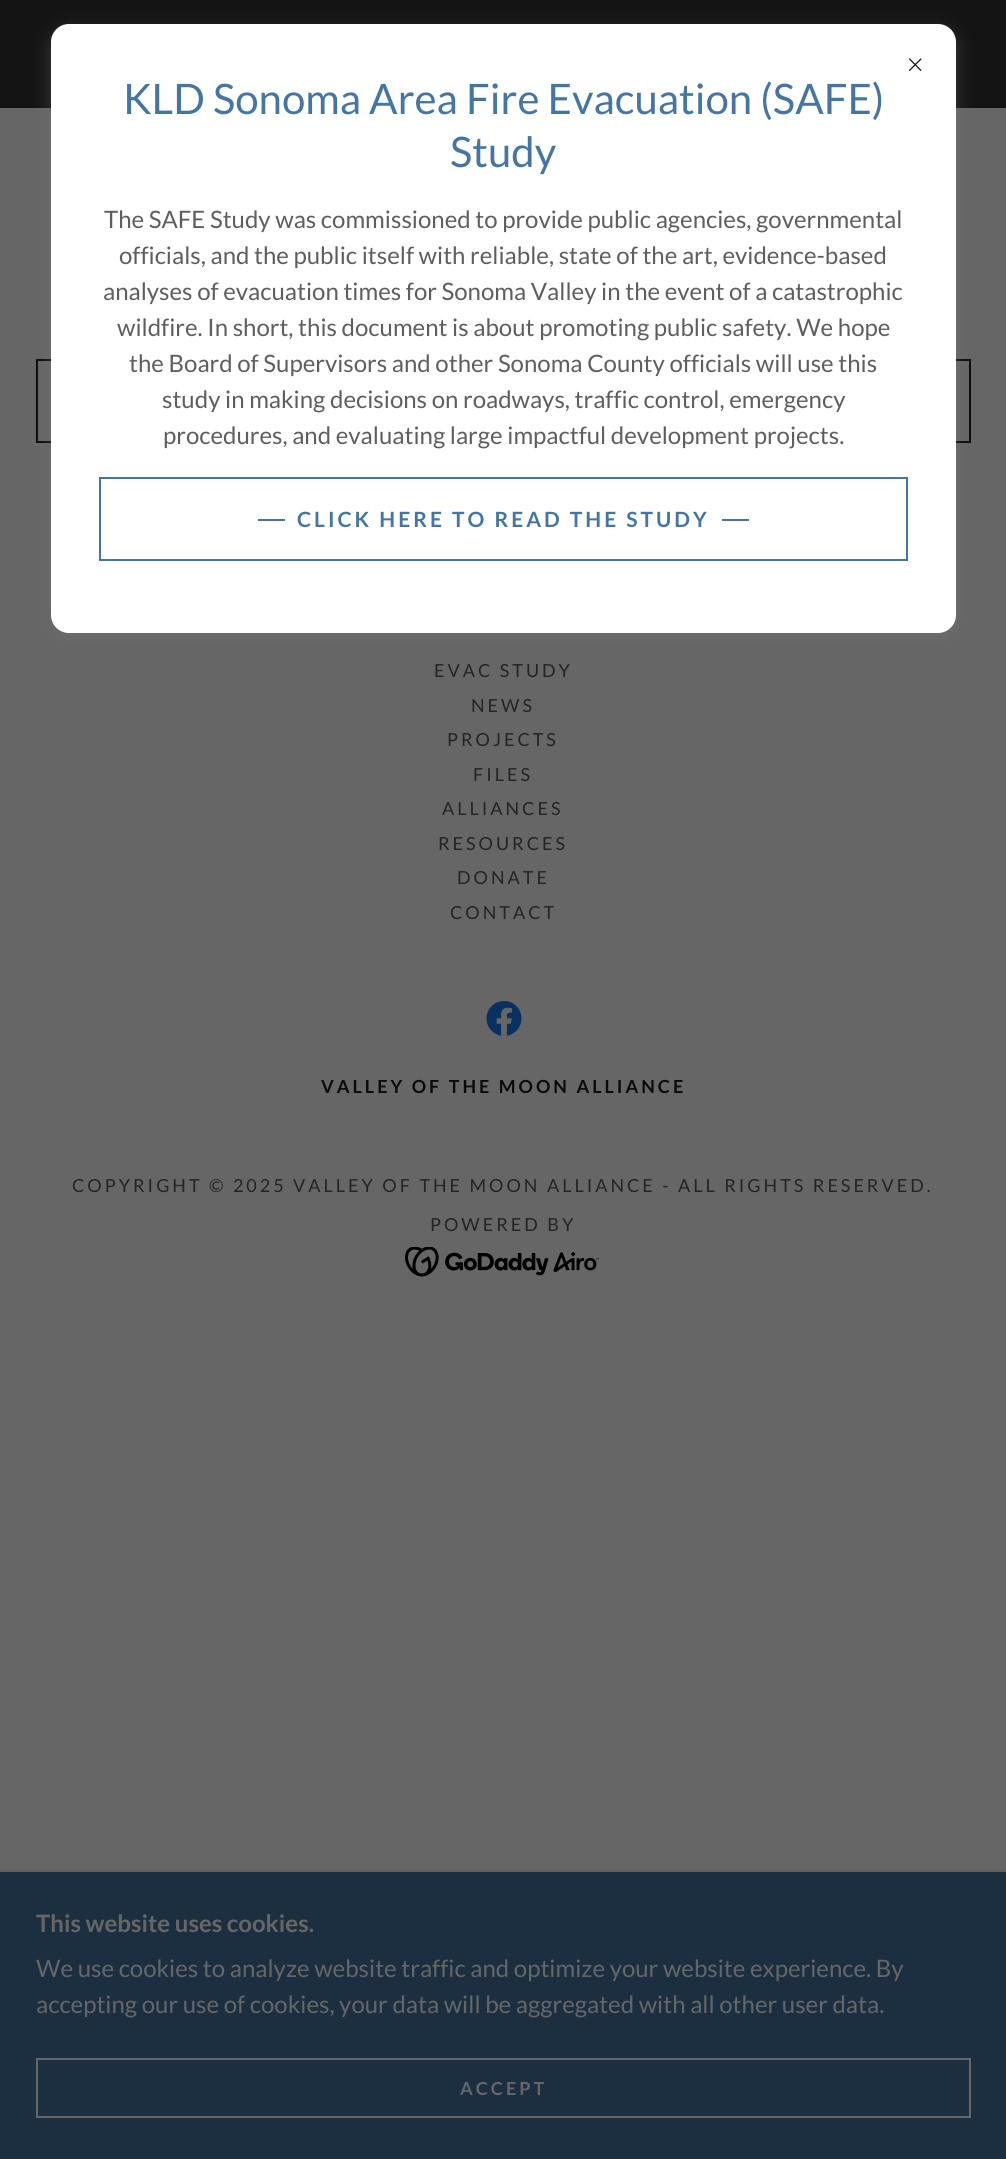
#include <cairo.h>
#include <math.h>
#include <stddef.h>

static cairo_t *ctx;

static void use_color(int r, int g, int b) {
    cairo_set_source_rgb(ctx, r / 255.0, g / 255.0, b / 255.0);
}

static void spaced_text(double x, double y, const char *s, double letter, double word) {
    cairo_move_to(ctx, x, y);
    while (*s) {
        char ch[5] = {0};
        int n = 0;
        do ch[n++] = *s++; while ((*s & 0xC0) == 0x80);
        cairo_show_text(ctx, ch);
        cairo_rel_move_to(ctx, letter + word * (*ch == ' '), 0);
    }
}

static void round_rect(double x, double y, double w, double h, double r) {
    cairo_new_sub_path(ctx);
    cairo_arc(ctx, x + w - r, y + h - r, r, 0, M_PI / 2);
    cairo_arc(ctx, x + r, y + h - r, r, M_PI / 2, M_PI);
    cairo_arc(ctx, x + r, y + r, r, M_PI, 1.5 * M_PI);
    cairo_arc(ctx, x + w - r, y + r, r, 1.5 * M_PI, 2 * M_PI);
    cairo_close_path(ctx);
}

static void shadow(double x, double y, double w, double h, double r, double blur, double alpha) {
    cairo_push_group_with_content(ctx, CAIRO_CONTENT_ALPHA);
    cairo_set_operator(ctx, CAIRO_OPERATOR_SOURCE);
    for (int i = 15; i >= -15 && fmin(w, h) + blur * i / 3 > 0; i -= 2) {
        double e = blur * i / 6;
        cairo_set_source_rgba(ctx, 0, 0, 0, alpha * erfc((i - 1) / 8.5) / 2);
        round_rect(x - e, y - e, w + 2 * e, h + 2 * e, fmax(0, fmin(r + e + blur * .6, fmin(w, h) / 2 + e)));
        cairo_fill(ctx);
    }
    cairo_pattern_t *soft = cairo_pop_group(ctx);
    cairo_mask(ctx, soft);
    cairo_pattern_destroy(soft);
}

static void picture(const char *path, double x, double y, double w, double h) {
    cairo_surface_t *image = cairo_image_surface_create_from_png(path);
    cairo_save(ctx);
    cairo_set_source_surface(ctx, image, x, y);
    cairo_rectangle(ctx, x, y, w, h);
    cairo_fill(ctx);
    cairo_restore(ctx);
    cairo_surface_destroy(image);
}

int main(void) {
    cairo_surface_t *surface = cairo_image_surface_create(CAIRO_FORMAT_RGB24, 1006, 2159);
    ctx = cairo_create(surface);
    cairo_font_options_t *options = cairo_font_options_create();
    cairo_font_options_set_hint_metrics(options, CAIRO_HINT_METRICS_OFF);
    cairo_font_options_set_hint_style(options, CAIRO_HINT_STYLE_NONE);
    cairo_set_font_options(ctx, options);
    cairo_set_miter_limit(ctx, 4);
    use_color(102, 102, 102);
    cairo_paint(ctx);
    use_color(20, 20, 20);
    cairo_rectangle(ctx, 0, 0, 1006, 108);
    cairo_fill(ctx);
    cairo_rectangle(ctx, 37, 360, 933, 82);
    use_color(11, 11, 11);
    cairo_stroke(ctx);
    use_color(117, 117, 117);
    shadow(51, 30, 905, 609, 18, 9, 0.4);
    use_color(255, 255, 255);
    round_rect(51, 24, 905, 609, 18);
    cairo_fill(ctx);
    picture("img1.png", 908, 58, 14, 13);
    cairo_select_font_face(ctx, "Lato", CAIRO_FONT_SLANT_NORMAL, CAIRO_FONT_WEIGHT_NORMAL);
    cairo_set_font_size(ctx, 42);
    use_color(69, 118, 163);
    cairo_move_to(ctx, 123, 114);
    cairo_show_text(ctx, "KLD Sonoma Area Fire Evacuation (SAFE)");
    cairo_move_to(ctx, 450, 167);
    cairo_show_text(ctx, "Study");
    cairo_set_font_size(ctx, 24);
    use_color(94, 94, 94);
    cairo_move_to(ctx, 104, 228);
    cairo_show_text(ctx, "The SAFE Study was commissioned to provide public agencies, governmental");
    cairo_move_to(ctx, 119, 264);
    cairo_show_text(ctx, "officials, and the public itself with reliable, state of the art, evidence-based");
    cairo_move_to(ctx, 103, 300);
    cairo_show_text(ctx, "analyses of evacuation times for Sonoma Valley in the event of a catastrophic");
    cairo_move_to(ctx, 117, 336);
    cairo_show_text(ctx, "wildfire. In short, this document is about promoting public safety. We hope");
    cairo_move_to(ctx, 129, 372);
    cairo_show_text(ctx, "the Board of Supervisors and other Sonoma County officials will use this");
    cairo_move_to(ctx, 162, 408);
    cairo_show_text(ctx, "study in making decisions on roadways, traffic control, emergency");
    cairo_move_to(ctx, 163, 444);
    cairo_show_text(ctx, "procedures, and evaluating large impactful development projects.");
    cairo_rectangle(ctx, 100, 478, 807, 82);
    use_color(69, 118, 163);
    cairo_stroke(ctx);
    cairo_rectangle(ctx, 258, 519, 27, 2);
    cairo_fill(ctx);
    cairo_select_font_face(ctx, "Lato", CAIRO_FONT_SLANT_NORMAL, CAIRO_FONT_WEIGHT_BOLD);
    cairo_set_font_size(ctx, 21);
    spaced_text(297, 527, "CLICK HERE TO READ THE STUDY", 3, 0);
    cairo_rectangle(ctx, 722, 519, 27, 2);
    cairo_fill(ctx);
    cairo_select_font_face(ctx, "Lato", CAIRO_FONT_SLANT_NORMAL, CAIRO_FONT_WEIGHT_NORMAL);
    cairo_set_font_size(ctx, 18);
    use_color(36, 36, 36);
    spaced_text(434, 677, "EVAC STUDY", 3, 0);
    spaced_text(471, 712, "NEWS", 3, 0);
    spaced_text(447, 746, "PROJECTS", 3, 0);
    spaced_text(473, 781, "FILES", 3, 0);
    spaced_text(442, 815, "ALLIANCES", 3, 0);
    spaced_text(438, 850, "RESOURCES", 3, 0);
    spaced_text(457, 884, "DONATE", 3, 0);
    spaced_text(450, 919, "CONTACT", 3, 0);
    picture("img2.png", 486, 1001, 36, 35);
    cairo_select_font_face(ctx, "Lato", CAIRO_FONT_SLANT_NORMAL, CAIRO_FONT_WEIGHT_BOLD);
    use_color(11, 11, 11);
    spaced_text(321, 1093, "VALLEY OF THE MOON ALLIANCE", 3, 0);
    cairo_select_font_face(ctx, "Lato", CAIRO_FONT_SLANT_NORMAL, CAIRO_FONT_WEIGHT_NORMAL);
    use_color(36, 36, 36);
    spaced_text(72, 1192, "COPYRIGHT © 2025 VALLEY OF THE MOON ALLIANCE - ALL RIGHTS RESERVED.", 3, 0);
    spaced_text(430, 1231, "POWERED BY", 3, 0);
    picture("img3.png", 405, 1247, 194, 30);
    use_color(0, 0, 0);
    shadow(0, 1875, 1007, 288, 0, 4.5, 0.3);
    use_color(28, 47, 65);
    cairo_rectangle(ctx, 0, 1872, 1006, 287);
    cairo_fill(ctx);
    cairo_select_font_face(ctx, "Lato", CAIRO_FONT_SLANT_NORMAL, CAIRO_FONT_WEIGHT_BOLD);
    cairo_set_font_size(ctx, 24);
    use_color(102, 102, 102);
    cairo_move_to(ctx, 36, 1932);
    cairo_show_text(ctx, "This website uses cookies.");
    cairo_select_font_face(ctx, "Lato", CAIRO_FONT_SLANT_NORMAL, CAIRO_FONT_WEIGHT_NORMAL);
    cairo_move_to(ctx, 36, 1977);
    cairo_show_text(ctx, "We use cookies to analyze website traffic and optimize your website experience. By");
    cairo_move_to(ctx, 36, 2013);
    cairo_show_text(ctx, "accepting our use of cookies, your data will be aggregated with all other user data.");
    cairo_rectangle(ctx, 37, 2059, 933, 58);
    cairo_stroke(ctx);
    cairo_select_font_face(ctx, "Lato", CAIRO_FONT_SLANT_NORMAL, CAIRO_FONT_WEIGHT_BOLD);
    cairo_set_font_size(ctx, 18);
    spaced_text(460, 2095, "ACCEPT", 3, 0);
    cairo_surface_write_to_png(surface, "result.png");
    cairo_font_options_destroy(options);
    cairo_destroy(ctx);
    cairo_surface_destroy(surface);
    return 0;
}
